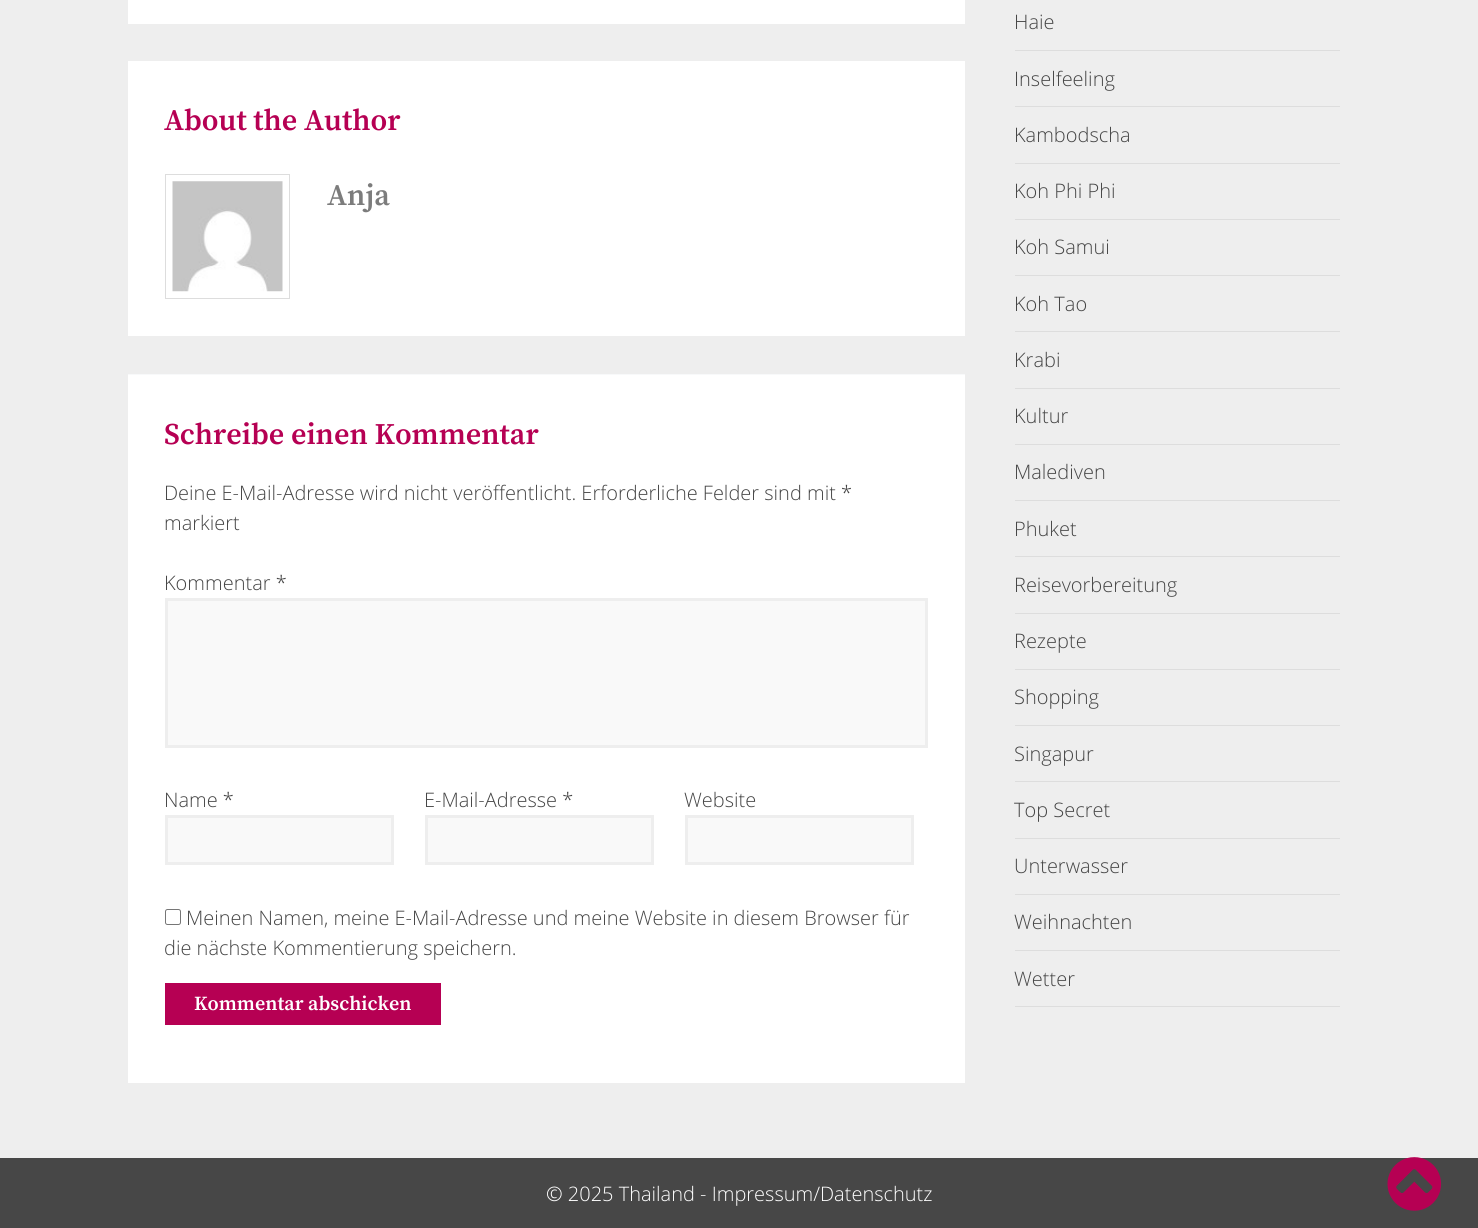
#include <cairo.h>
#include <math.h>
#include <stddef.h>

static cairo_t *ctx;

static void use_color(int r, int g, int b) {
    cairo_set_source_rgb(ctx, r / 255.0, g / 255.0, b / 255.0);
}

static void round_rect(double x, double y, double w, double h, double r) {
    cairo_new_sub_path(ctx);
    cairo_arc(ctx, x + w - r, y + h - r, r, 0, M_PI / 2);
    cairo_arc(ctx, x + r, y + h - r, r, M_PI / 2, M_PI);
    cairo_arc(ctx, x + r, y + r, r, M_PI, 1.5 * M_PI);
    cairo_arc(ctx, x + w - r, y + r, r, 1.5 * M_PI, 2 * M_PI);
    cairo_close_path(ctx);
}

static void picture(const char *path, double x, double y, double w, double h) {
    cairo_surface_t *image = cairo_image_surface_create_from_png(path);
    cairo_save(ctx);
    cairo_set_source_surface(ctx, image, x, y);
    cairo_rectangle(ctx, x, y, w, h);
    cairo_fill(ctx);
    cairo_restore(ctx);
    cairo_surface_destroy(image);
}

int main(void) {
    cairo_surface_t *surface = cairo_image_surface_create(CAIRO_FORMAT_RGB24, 1478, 1228);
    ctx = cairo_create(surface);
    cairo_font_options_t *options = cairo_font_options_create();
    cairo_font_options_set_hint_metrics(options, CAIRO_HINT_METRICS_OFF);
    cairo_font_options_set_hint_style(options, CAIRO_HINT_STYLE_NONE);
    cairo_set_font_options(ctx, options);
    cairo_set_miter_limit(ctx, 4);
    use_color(238, 238, 238);
    cairo_paint(ctx);
    use_color(255, 255, 255);
    cairo_rectangle(ctx, 128, 0, 837, 24);
    cairo_fill(ctx);
    cairo_rectangle(ctx, 128, 61, 837, 275);
    cairo_fill(ctx);
    cairo_select_font_face(ctx, "Source Serif Pro SemiBold", CAIRO_FONT_SLANT_NORMAL, CAIRO_FONT_WEIGHT_NORMAL);
    cairo_set_font_size(ctx, 30);
    use_color(182, 0, 83);
    cairo_move_to(ctx, 164, 130);
    cairo_show_text(ctx, "About the Author");
    cairo_rectangle(ctx, 165.5, 174.5, 124, 124);
    use_color(221, 221, 221);
    cairo_set_line_width(ctx, 1);
    cairo_stroke(ctx);
    picture("img1.png", 172, 181, 111, 111);
    use_color(124, 124, 124);
    cairo_move_to(ctx, 327, 205);
    cairo_show_text(ctx, "Anja");
    use_color(255, 255, 255);
    cairo_rectangle(ctx, 128, 375, 837, 708);
    cairo_fill(ctx);
    use_color(248, 249, 250);
    cairo_rectangle(ctx, 128, 374, 837, 1);
    cairo_fill(ctx);
    use_color(182, 0, 83);
    cairo_move_to(ctx, 164, 444);
    cairo_show_text(ctx, "Schreibe einen Kommentar");
    cairo_select_font_face(ctx, "Open Sans Light", CAIRO_FONT_SLANT_NORMAL, CAIRO_FONT_WEIGHT_NORMAL);
    cairo_set_font_size(ctx, 20);
    use_color(69, 69, 69);
    cairo_move_to(ctx, 164, 500);
    cairo_show_text(ctx, "Deine E-Mail-Adresse wird nicht veröffentlicht. Erforderliche Felder sind mit *");
    cairo_move_to(ctx, 164, 530);
    cairo_show_text(ctx, "markiert");
    cairo_move_to(ctx, 164, 590);
    cairo_show_text(ctx, "Kommentar *");
    use_color(249, 249, 249);
    cairo_rectangle(ctx, 166.5, 599.5, 760, 147);
    cairo_fill_preserve(ctx);
    use_color(238, 238, 238);
    cairo_set_line_width(ctx, 3);
    cairo_stroke(ctx);
    use_color(69, 69, 69);
    cairo_move_to(ctx, 164, 807);
    cairo_show_text(ctx, "Name *");
    use_color(249, 249, 249);
    cairo_rectangle(ctx, 166.5, 816.5, 226, 47);
    cairo_fill_preserve(ctx);
    use_color(238, 238, 238);
    cairo_stroke(ctx);
    use_color(69, 69, 69);
    cairo_move_to(ctx, 424, 807);
    cairo_show_text(ctx, "E-Mail-Adresse *");
    use_color(249, 249, 249);
    cairo_rectangle(ctx, 426.5, 816.5, 226, 47);
    cairo_fill_preserve(ctx);
    use_color(238, 238, 238);
    cairo_stroke(ctx);
    use_color(69, 69, 69);
    cairo_move_to(ctx, 684, 807);
    cairo_show_text(ctx, "Website");
    use_color(249, 249, 249);
    cairo_rectangle(ctx, 686.5, 816.5, 226, 47);
    cairo_fill_preserve(ctx);
    use_color(238, 238, 238);
    cairo_stroke(ctx);
    round_rect(165.5, 909.5, 15, 15, 2);
    use_color(118, 118, 118);
    cairo_set_line_width(ctx, 1);
    cairo_stroke(ctx);
    use_color(69, 69, 69);
    cairo_move_to(ctx, 186, 925);
    cairo_show_text(ctx, "Meinen Namen, meine E-Mail-Adresse und meine Website in diesem Browser für");
    cairo_move_to(ctx, 164, 955);
    cairo_show_text(ctx, "die nächste Kommentierung speichern.");
    use_color(182, 0, 83);
    cairo_rectangle(ctx, 165, 983, 276, 42);
    cairo_fill(ctx);
    cairo_select_font_face(ctx, "Source Serif Pro SemiBold", CAIRO_FONT_SLANT_NORMAL, CAIRO_FONT_WEIGHT_NORMAL);
    use_color(255, 255, 255);
    cairo_move_to(ctx, 194, 1010);
    cairo_show_text(ctx, "Kommentar abschicken");
    use_color(221, 221, 221);
    cairo_rectangle(ctx, 1015, 50, 325, 1);
    cairo_fill(ctx);
    cairo_select_font_face(ctx, "Open Sans Light", CAIRO_FONT_SLANT_NORMAL, CAIRO_FONT_WEIGHT_NORMAL);
    use_color(69, 69, 69);
    cairo_move_to(ctx, 1014, 29);
    cairo_show_text(ctx, "Haie");
    use_color(221, 221, 221);
    cairo_rectangle(ctx, 1015, 106, 325, 1);
    cairo_fill(ctx);
    use_color(69, 69, 69);
    cairo_move_to(ctx, 1014, 86);
    cairo_show_text(ctx, "Inselfeeling");
    use_color(221, 221, 221);
    cairo_rectangle(ctx, 1015, 163, 325, 1);
    cairo_fill(ctx);
    use_color(69, 69, 69);
    cairo_move_to(ctx, 1014, 142);
    cairo_show_text(ctx, "Kambodscha");
    use_color(221, 221, 221);
    cairo_rectangle(ctx, 1015, 219, 325, 1);
    cairo_fill(ctx);
    use_color(69, 69, 69);
    cairo_move_to(ctx, 1014, 198);
    cairo_show_text(ctx, "Koh Phi Phi");
    use_color(221, 221, 221);
    cairo_rectangle(ctx, 1015, 275, 325, 1);
    cairo_fill(ctx);
    use_color(69, 69, 69);
    cairo_move_to(ctx, 1014, 254);
    cairo_show_text(ctx, "Koh Samui");
    use_color(221, 221, 221);
    cairo_rectangle(ctx, 1015, 331, 325, 1);
    cairo_fill(ctx);
    use_color(69, 69, 69);
    cairo_move_to(ctx, 1014, 311);
    cairo_show_text(ctx, "Koh Tao");
    use_color(221, 221, 221);
    cairo_rectangle(ctx, 1015, 388, 325, 1);
    cairo_fill(ctx);
    use_color(69, 69, 69);
    cairo_move_to(ctx, 1014, 367);
    cairo_show_text(ctx, "Krabi");
    use_color(221, 221, 221);
    cairo_rectangle(ctx, 1015, 444, 325, 1);
    cairo_fill(ctx);
    use_color(69, 69, 69);
    cairo_move_to(ctx, 1014, 423);
    cairo_show_text(ctx, "Kultur");
    use_color(221, 221, 221);
    cairo_rectangle(ctx, 1015, 500, 325, 1);
    cairo_fill(ctx);
    use_color(69, 69, 69);
    cairo_move_to(ctx, 1014, 479);
    cairo_show_text(ctx, "Malediven");
    use_color(221, 221, 221);
    cairo_rectangle(ctx, 1015, 556, 325, 1);
    cairo_fill(ctx);
    use_color(69, 69, 69);
    cairo_move_to(ctx, 1014, 536);
    cairo_show_text(ctx, "Phuket");
    use_color(221, 221, 221);
    cairo_rectangle(ctx, 1015, 613, 325, 1);
    cairo_fill(ctx);
    use_color(69, 69, 69);
    cairo_move_to(ctx, 1014, 592);
    cairo_show_text(ctx, "Reisevorbereitung");
    use_color(221, 221, 221);
    cairo_rectangle(ctx, 1015, 669, 325, 1);
    cairo_fill(ctx);
    use_color(69, 69, 69);
    cairo_move_to(ctx, 1014, 648);
    cairo_show_text(ctx, "Rezepte");
    use_color(221, 221, 221);
    cairo_rectangle(ctx, 1015, 725, 325, 1);
    cairo_fill(ctx);
    use_color(69, 69, 69);
    cairo_move_to(ctx, 1014, 704);
    cairo_show_text(ctx, "Shopping");
    use_color(221, 221, 221);
    cairo_rectangle(ctx, 1015, 781, 325, 1);
    cairo_fill(ctx);
    use_color(69, 69, 69);
    cairo_move_to(ctx, 1014, 761);
    cairo_show_text(ctx, "Singapur");
    use_color(221, 221, 221);
    cairo_rectangle(ctx, 1015, 838, 325, 1);
    cairo_fill(ctx);
    use_color(69, 69, 69);
    cairo_move_to(ctx, 1014, 817);
    cairo_show_text(ctx, "Top Secret");
    use_color(221, 221, 221);
    cairo_rectangle(ctx, 1015, 894, 325, 1);
    cairo_fill(ctx);
    use_color(69, 69, 69);
    cairo_move_to(ctx, 1014, 873);
    cairo_show_text(ctx, "Unterwasser");
    use_color(221, 221, 221);
    cairo_rectangle(ctx, 1015, 950, 325, 1);
    cairo_fill(ctx);
    use_color(69, 69, 69);
    cairo_move_to(ctx, 1014, 929);
    cairo_show_text(ctx, "Weihnachten");
    use_color(221, 221, 221);
    cairo_rectangle(ctx, 1015, 1006, 325, 1);
    cairo_fill(ctx);
    use_color(69, 69, 69);
    cairo_move_to(ctx, 1014, 986);
    cairo_show_text(ctx, "Wetter");
    use_color(71, 71, 71);
    cairo_rectangle(ctx, 0, 1158, 1478, 70);
    cairo_fill(ctx);
    use_color(255, 255, 255);
    cairo_move_to(ctx, 546, 1201);
    cairo_show_text(ctx, "© 2025 Thailand - Impressum/Datenschutz");
    picture("img2.png", 1387, 1157, 55, 54);
    cairo_surface_write_to_png(surface, "result.png");
    cairo_font_options_destroy(options);
    cairo_destroy(ctx);
    cairo_surface_destroy(surface);
    return 0;
}
